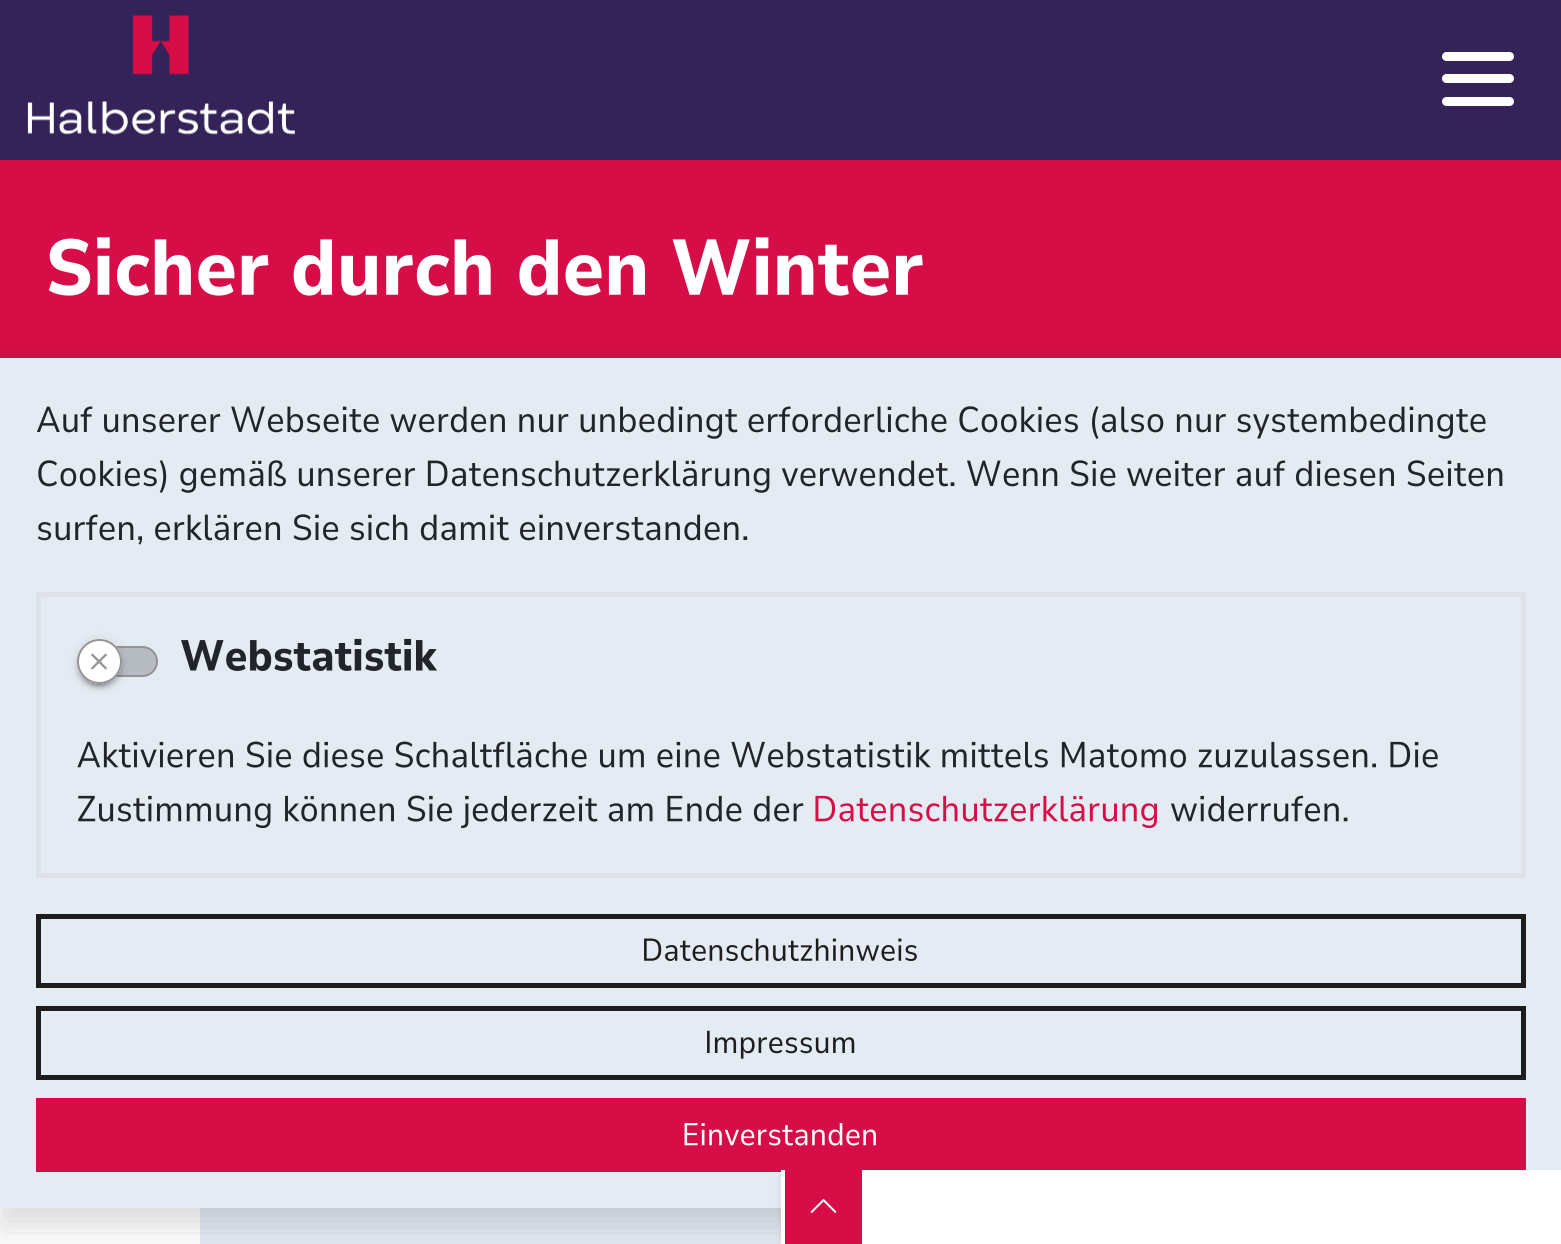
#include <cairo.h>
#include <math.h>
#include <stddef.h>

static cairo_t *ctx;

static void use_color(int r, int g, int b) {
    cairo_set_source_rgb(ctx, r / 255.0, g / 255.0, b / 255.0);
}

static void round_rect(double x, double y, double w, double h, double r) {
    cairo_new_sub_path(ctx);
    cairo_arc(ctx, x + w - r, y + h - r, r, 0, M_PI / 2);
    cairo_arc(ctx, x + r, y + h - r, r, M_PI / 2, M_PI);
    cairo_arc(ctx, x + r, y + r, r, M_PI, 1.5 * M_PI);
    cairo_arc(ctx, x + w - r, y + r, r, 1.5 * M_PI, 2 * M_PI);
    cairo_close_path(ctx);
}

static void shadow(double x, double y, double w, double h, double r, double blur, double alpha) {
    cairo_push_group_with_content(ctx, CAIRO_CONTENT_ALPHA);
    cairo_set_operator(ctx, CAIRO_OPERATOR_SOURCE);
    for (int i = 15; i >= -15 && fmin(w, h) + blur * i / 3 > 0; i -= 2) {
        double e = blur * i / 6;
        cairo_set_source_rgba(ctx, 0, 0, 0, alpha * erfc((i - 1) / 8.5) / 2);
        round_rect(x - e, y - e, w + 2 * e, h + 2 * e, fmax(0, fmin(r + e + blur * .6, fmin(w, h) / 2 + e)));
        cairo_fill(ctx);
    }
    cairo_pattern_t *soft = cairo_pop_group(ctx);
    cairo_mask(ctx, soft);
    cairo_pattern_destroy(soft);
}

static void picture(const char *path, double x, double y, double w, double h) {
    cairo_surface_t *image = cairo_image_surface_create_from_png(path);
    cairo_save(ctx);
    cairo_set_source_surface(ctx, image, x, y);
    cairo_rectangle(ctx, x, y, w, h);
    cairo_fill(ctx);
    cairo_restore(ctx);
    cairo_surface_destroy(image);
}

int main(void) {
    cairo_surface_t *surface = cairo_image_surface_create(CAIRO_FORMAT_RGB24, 1561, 1244);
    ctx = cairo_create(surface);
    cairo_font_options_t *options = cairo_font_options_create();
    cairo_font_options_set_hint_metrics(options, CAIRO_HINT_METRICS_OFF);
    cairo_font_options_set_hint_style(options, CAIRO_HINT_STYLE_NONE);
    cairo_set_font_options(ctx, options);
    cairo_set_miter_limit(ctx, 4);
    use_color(255, 255, 255);
    cairo_paint(ctx);
    use_color(51, 35, 88);
    cairo_rectangle(ctx, 0, 0, 1561, 160);
    cairo_fill(ctx);
    picture("img1.png", 27, 15, 268, 120);
    use_color(255, 255, 255);
    round_rect(1442, 52, 72, 9, 4.5);
    cairo_fill(ctx);
    round_rect(1442, 74, 72, 9, 4.5);
    cairo_fill(ctx);
    round_rect(1442, 97, 72, 9, 4.5);
    cairo_fill(ctx);
    use_color(214, 13, 71);
    cairo_rectangle(ctx, 0, 160, 1561, 198);
    cairo_fill(ctx);
    picture("img2.png", 48, 237, 875, 59);
    use_color(228, 235, 243);
    cairo_rectangle(ctx, 200, 1208, 581, 36);
    cairo_fill(ctx);
    use_color(0, 0, 0);
    shadow(0, 376, 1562, 850, 0, 18, 0.15);
    use_color(228, 235, 243);
    cairo_rectangle(ctx, 0, 358, 1561, 850);
    cairo_fill(ctx);
    use_color(214, 13, 71);
    cairo_rectangle(ctx, 36, 1098, 1490, 74);
    cairo_fill(ctx);
    use_color(0, 0, 0);
    shadow(781, 1175, 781, 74, 0, 4.5, 0.07);
    use_color(255, 255, 255);
    cairo_rectangle(ctx, 781, 1170, 780, 74);
    cairo_fill(ctx);
    use_color(214, 13, 71);
    cairo_rectangle(ctx, 785, 1170, 77, 74);
    cairo_fill(ctx);
    picture("img3.png", 810, 1199, 27, 14);
    picture("img4.png", 36, 406, 1450, 33);
    picture("img5.png", 38, 460, 1465, 33);
    picture("img6.png", 37, 514, 711, 31);
    cairo_rectangle(ctx, 38.5, 594.5, 1485, 281);
    use_color(222, 226, 230);
    cairo_set_line_width(ctx, 5);
    cairo_stroke(ctx);
    use_color(182, 188, 194);
    round_rect(78, 647, 79, 29, 14.5);
    cairo_fill_preserve(ctx);
    use_color(148, 148, 148);
    cairo_set_line_width(ctx, 2);
    cairo_stroke(ctx);
    use_color(0, 0, 0);
    shadow(77, 641, 45, 45, 22.5, 5.5, 0.12);
    shadow(77, 644, 45, 45, 22.5, 2, 0.14);
    shadow(81, 650, 36, 36, 18, 1, 0.2);
    use_color(255, 255, 255);
    cairo_arc(ctx, 99.5, 661.5, 22.5, 0, 2 * M_PI);
    cairo_fill(ctx);
    picture("img7.png", 91, 653, 16, 17);
    cairo_arc(ctx, 99.5, 661.5, 21.5, 0, 2 * M_PI);
    use_color(148, 148, 148);
    cairo_stroke(ctx);
    picture("img8.png", 181, 638, 257, 33);
    picture("img9.png", 77, 741, 1361, 27);
    picture("img10.png", 78, 795, 726, 34);
    picture("img11.png", 815, 795, 342, 34);
    picture("img12.png", 1171, 795, 177, 27);
    cairo_rectangle(ctx, 38.5, 916.5, 1485, 69);
    use_color(29, 29, 29);
    cairo_set_line_width(ctx, 5);
    cairo_stroke(ctx);
    picture("img13.png", 644, 938, 273, 23);
    cairo_rectangle(ctx, 38.5, 1008.5, 1485, 69);
    cairo_stroke(ctx);
    picture("img14.png", 707, 1030, 148, 29);
    picture("img15.png", 684, 1123, 192, 23);
    cairo_surface_write_to_png(surface, "result.png");
    cairo_font_options_destroy(options);
    cairo_destroy(ctx);
    cairo_surface_destroy(surface);
    return 0;
}
